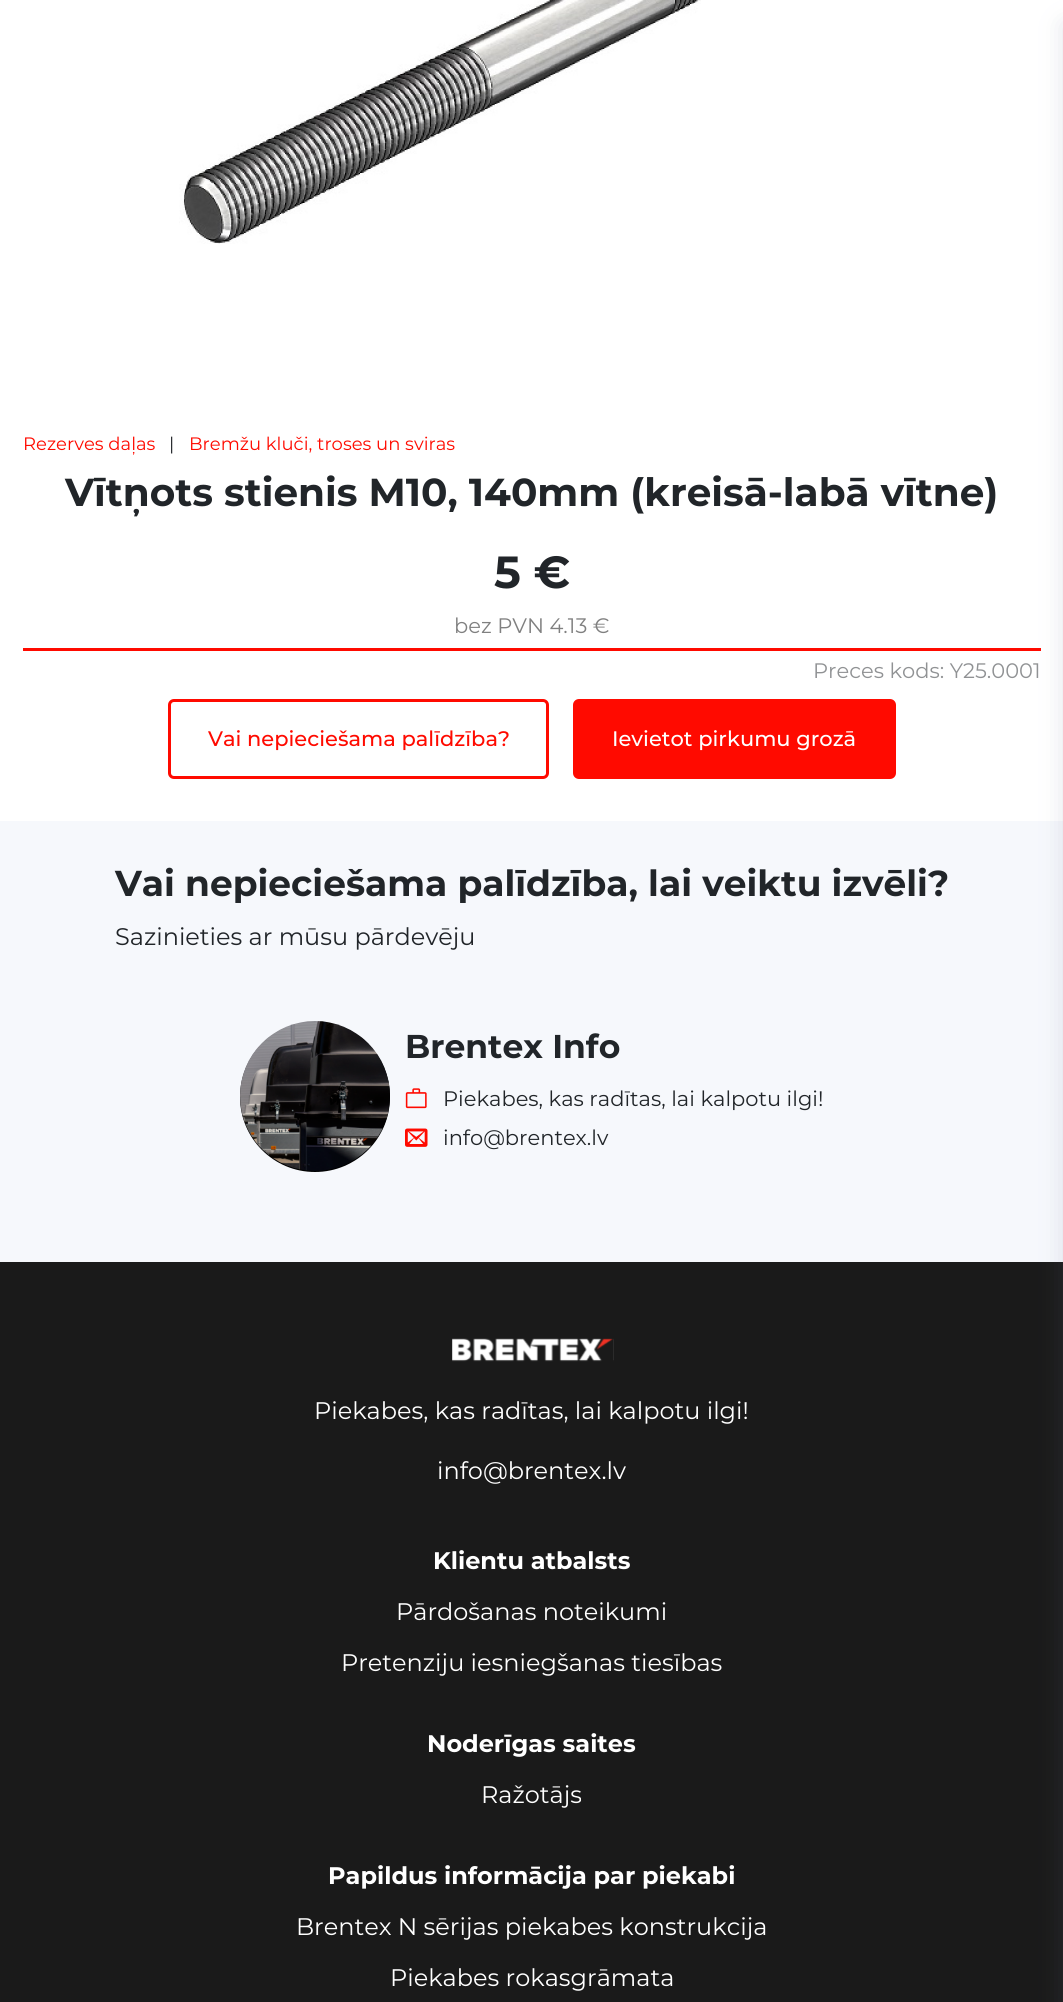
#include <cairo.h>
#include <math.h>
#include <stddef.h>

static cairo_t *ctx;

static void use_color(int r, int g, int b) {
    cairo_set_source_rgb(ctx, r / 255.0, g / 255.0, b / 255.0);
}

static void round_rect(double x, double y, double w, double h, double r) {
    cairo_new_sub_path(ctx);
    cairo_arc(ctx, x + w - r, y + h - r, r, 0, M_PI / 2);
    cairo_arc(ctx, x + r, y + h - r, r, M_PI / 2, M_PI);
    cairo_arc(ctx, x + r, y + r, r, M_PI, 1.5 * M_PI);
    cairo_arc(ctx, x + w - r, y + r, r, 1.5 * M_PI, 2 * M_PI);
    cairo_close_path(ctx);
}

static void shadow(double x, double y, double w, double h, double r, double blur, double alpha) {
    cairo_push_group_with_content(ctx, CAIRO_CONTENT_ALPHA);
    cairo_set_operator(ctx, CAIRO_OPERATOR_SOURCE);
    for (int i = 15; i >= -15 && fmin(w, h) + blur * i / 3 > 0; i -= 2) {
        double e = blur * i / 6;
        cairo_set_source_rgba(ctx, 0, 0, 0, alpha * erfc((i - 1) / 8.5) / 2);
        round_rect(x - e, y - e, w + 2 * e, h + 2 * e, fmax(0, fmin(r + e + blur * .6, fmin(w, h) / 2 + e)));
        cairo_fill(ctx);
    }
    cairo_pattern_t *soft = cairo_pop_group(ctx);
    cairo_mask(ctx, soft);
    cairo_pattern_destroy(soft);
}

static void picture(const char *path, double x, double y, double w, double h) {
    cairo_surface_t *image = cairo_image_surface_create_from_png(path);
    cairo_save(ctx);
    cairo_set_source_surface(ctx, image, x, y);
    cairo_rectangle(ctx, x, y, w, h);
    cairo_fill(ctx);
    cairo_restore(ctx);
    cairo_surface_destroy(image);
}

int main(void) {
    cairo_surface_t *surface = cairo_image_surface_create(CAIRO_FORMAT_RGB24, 1063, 2002);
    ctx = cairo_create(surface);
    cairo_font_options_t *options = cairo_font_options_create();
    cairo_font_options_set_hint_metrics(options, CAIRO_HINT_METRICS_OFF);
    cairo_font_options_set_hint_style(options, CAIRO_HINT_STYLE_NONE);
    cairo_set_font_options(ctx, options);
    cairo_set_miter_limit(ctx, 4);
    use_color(255, 255, 255);
    cairo_paint(ctx);
    picture("img1.png", 179, 0, 522, 244);
    cairo_select_font_face(ctx, "Montserrat", CAIRO_FONT_SLANT_NORMAL, CAIRO_FONT_WEIGHT_NORMAL);
    cairo_set_font_size(ctx, 18);
    use_color(255, 10, 0);
    cairo_move_to(ctx, 23, 450);
    cairo_show_text(ctx, "Rezerves daļas");
    use_color(33, 37, 41);
    cairo_move_to(ctx, 169, 450);
    cairo_show_text(ctx, "|");
    use_color(255, 10, 0);
    cairo_move_to(ctx, 189, 450);
    cairo_show_text(ctx, "Bremžu kluči, troses un sviras");
    cairo_rectangle(ctx, 23, 648, 1018, 3);
    cairo_fill(ctx);
    cairo_select_font_face(ctx, "Montserrat", CAIRO_FONT_SLANT_NORMAL, CAIRO_FONT_WEIGHT_BOLD);
    cairo_set_font_size(ctx, 39);
    use_color(33, 37, 41);
    cairo_move_to(ctx, 65, 506);
    cairo_show_text(ctx, "Vītņots stienis M10, 140mm (kreisā-labā vītne)");
    cairo_set_font_size(ctx, 45);
    cairo_move_to(ctx, 494, 588);
    cairo_show_text(ctx, "5 €");
    cairo_select_font_face(ctx, "Montserrat", CAIRO_FONT_SLANT_NORMAL, CAIRO_FONT_WEIGHT_NORMAL);
    cairo_set_font_size(ctx, 21);
    use_color(128, 128, 128);
    cairo_move_to(ctx, 454, 633);
    cairo_show_text(ctx, "bez PVN 4.13 €");
    use_color(144, 146, 148);
    cairo_move_to(ctx, 813, 678);
    cairo_show_text(ctx, "Preces kods: Y25.0001");
    round_rect(169.5, 700.5, 378, 77, 4.5);
    use_color(255, 10, 0);
    cairo_set_line_width(ctx, 3);
    cairo_stroke(ctx);
    cairo_select_font_face(ctx, "Montserrat Medium", CAIRO_FONT_SLANT_NORMAL, CAIRO_FONT_WEIGHT_NORMAL);
    cairo_move_to(ctx, 208, 746);
    cairo_show_text(ctx, "Vai nepieciešama palīdzība?");
    round_rect(574.5, 700.5, 320, 77, 4.5);
    cairo_fill_preserve(ctx);
    cairo_stroke(ctx);
    use_color(255, 255, 255);
    cairo_move_to(ctx, 612, 746);
    cairo_show_text(ctx, "Ievietot pirkumu grozā");
    use_color(246, 248, 252);
    cairo_rectangle(ctx, 0, 821, 1063, 441);
    cairo_fill(ctx);
    cairo_select_font_face(ctx, "Montserrat", CAIRO_FONT_SLANT_NORMAL, CAIRO_FONT_WEIGHT_BOLD);
    cairo_set_font_size(ctx, 36);
    use_color(33, 37, 41);
    cairo_move_to(ctx, 115, 896);
    cairo_show_text(ctx, "Vai nepieciešama palīdzība, lai veiktu izvēli?");
    cairo_select_font_face(ctx, "Montserrat", CAIRO_FONT_SLANT_NORMAL, CAIRO_FONT_WEIGHT_NORMAL);
    cairo_set_font_size(ctx, 24);
    cairo_move_to(ctx, 115, 945);
    cairo_show_text(ctx, "Sazinieties ar mūsu pārdevēju");
    use_color(0, 0, 0);
    cairo_new_path(ctx);
    cairo_arc(ctx, 315, 1097, 75, 0, 2 * M_PI);
    cairo_fill(ctx);
    picture("img2.png", 240, 1021, 150, 150);
    cairo_select_font_face(ctx, "Montserrat", CAIRO_FONT_SLANT_NORMAL, CAIRO_FONT_WEIGHT_BOLD);
    cairo_set_font_size(ctx, 33);
    use_color(33, 37, 41);
    cairo_move_to(ctx, 405, 1058);
    cairo_show_text(ctx, "Brentex Info");
    picture("img3.png", 405, 1088, 22, 21);
    cairo_select_font_face(ctx, "Montserrat", CAIRO_FONT_SLANT_NORMAL, CAIRO_FONT_WEIGHT_NORMAL);
    cairo_set_font_size(ctx, 21);
    cairo_move_to(ctx, 443, 1106);
    cairo_show_text(ctx, "Piekabes, kas radītas, lai kalpotu ilgi!");
    picture("img4.png", 405, 1128, 23, 19);
    cairo_move_to(ctx, 443, 1145);
    cairo_show_text(ctx, "info@brentex.lv");
    use_color(26, 26, 26);
    cairo_rectangle(ctx, 0, 1262, 1063, 740);
    cairo_fill(ctx);
    use_color(100, 116, 139);
    shadow(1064, 24, 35, 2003, 0, 12, 0.2);
    picture("img5.png", 452, 1338, 162, 24);
    cairo_set_font_size(ctx, 24);
    use_color(255, 255, 255);
    cairo_move_to(ctx, 314, 1419);
    cairo_show_text(ctx, "Piekabes, kas radītas, lai kalpotu ilgi!");
    cairo_move_to(ctx, 437, 1479);
    cairo_show_text(ctx, "info@brentex.lv");
    cairo_select_font_face(ctx, "Montserrat", CAIRO_FONT_SLANT_NORMAL, CAIRO_FONT_WEIGHT_BOLD);
    cairo_move_to(ctx, 433, 1569);
    cairo_show_text(ctx, "Klientu atbalsts");
    cairo_select_font_face(ctx, "Montserrat", CAIRO_FONT_SLANT_NORMAL, CAIRO_FONT_WEIGHT_NORMAL);
    cairo_move_to(ctx, 396, 1620);
    cairo_show_text(ctx, "Pārdošanas noteikumi");
    cairo_move_to(ctx, 341, 1671);
    cairo_show_text(ctx, "Pretenziju iesniegšanas tiesības");
    cairo_select_font_face(ctx, "Montserrat", CAIRO_FONT_SLANT_NORMAL, CAIRO_FONT_WEIGHT_BOLD);
    cairo_move_to(ctx, 427, 1752);
    cairo_show_text(ctx, "Noderīgas saites");
    cairo_select_font_face(ctx, "Montserrat", CAIRO_FONT_SLANT_NORMAL, CAIRO_FONT_WEIGHT_NORMAL);
    cairo_move_to(ctx, 481, 1803);
    cairo_show_text(ctx, "Ražotājs");
    cairo_select_font_face(ctx, "Montserrat", CAIRO_FONT_SLANT_NORMAL, CAIRO_FONT_WEIGHT_BOLD);
    cairo_move_to(ctx, 328, 1884);
    cairo_show_text(ctx, "Papildus informācija par piekabi");
    cairo_select_font_face(ctx, "Montserrat", CAIRO_FONT_SLANT_NORMAL, CAIRO_FONT_WEIGHT_NORMAL);
    cairo_move_to(ctx, 296, 1935);
    cairo_show_text(ctx, "Brentex N sērijas piekabes konstrukcija");
    cairo_move_to(ctx, 390, 1986);
    cairo_show_text(ctx, "Piekabes rokasgrāmata");
    cairo_surface_write_to_png(surface, "result.png");
    cairo_font_options_destroy(options);
    cairo_destroy(ctx);
    cairo_surface_destroy(surface);
    return 0;
}
